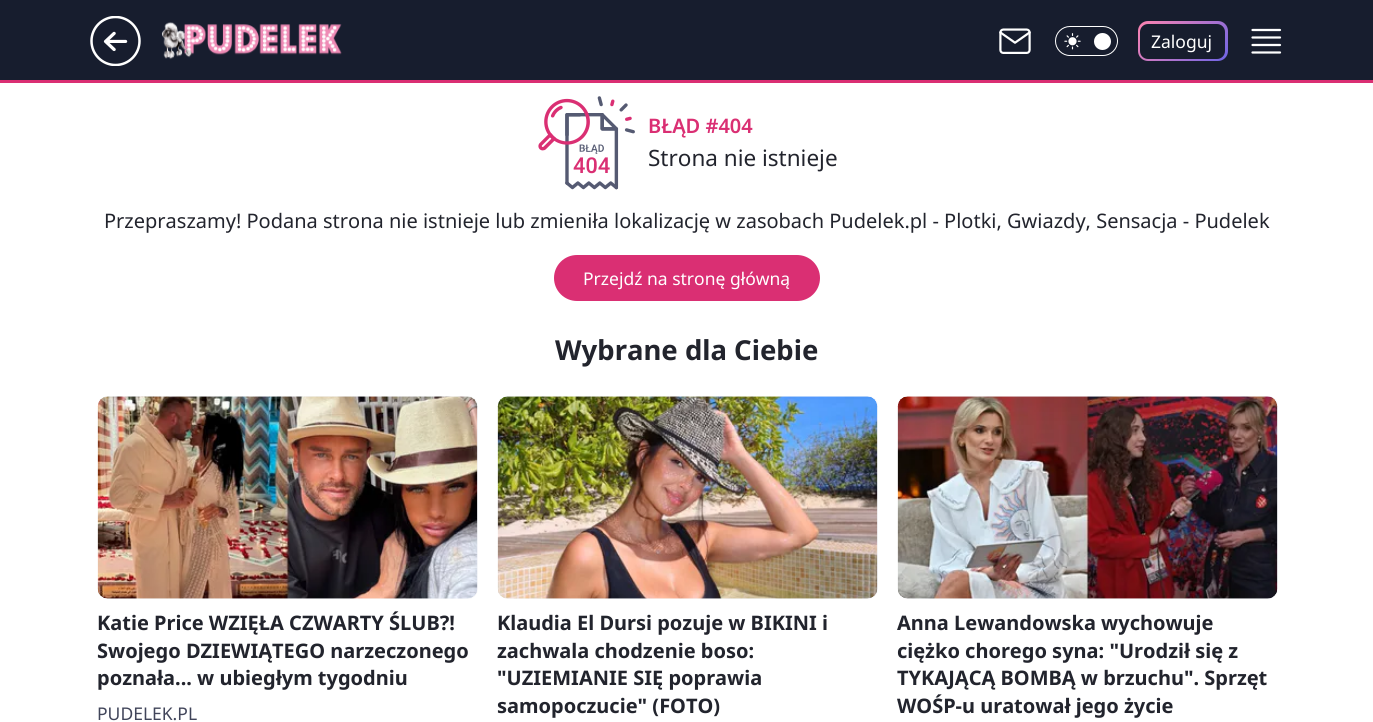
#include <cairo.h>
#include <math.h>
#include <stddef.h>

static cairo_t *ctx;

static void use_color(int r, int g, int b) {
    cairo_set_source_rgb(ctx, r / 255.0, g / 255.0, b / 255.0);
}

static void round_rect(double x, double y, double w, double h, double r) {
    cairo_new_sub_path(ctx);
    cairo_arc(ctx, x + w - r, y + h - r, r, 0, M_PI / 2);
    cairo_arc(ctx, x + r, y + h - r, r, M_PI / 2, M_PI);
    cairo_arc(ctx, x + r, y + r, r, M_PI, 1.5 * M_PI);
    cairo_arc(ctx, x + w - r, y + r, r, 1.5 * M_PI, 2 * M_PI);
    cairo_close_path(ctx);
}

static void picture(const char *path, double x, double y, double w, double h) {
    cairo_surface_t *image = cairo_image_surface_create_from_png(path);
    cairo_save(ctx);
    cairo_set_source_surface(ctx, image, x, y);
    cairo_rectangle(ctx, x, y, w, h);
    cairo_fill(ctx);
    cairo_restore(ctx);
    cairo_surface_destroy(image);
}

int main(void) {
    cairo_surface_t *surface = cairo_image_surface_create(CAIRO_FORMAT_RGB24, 1373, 722);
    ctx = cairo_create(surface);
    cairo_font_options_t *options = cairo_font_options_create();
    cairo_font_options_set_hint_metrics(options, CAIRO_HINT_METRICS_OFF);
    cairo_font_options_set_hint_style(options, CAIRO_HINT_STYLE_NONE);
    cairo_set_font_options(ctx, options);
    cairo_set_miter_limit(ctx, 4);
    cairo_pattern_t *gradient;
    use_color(255, 255, 255);
    cairo_paint(ctx);
    use_color(23, 29, 46);
    cairo_rectangle(ctx, 0, 0, 1373, 80);
    cairo_fill(ctx);
    picture("img1.png", 90, 16, 51, 50);
    picture("img2.png", 161, 22, 181, 38);
    picture("img3.png", 999, 28, 32, 26);
    round_rect(1055.5, 26.5, 62, 29, 14.5);
    use_color(255, 255, 255);
    cairo_set_line_width(ctx, 1);
    cairo_stroke(ctx);
    picture("img4.png", 1064, 33, 17, 17);
    cairo_arc(ctx, 1102.5, 41.5, 8.5, 0, 2 * M_PI);
    cairo_fill(ctx);
    gradient = cairo_pattern_create_linear(1150, 9, 1215, 74);
    cairo_pattern_add_color_stop_rgba(gradient, 0, 1, 0.518, 0.69, 1);
    cairo_pattern_add_color_stop_rgba(gradient, 1, 0.431, 0.396, 0.898, 1);
    cairo_set_source(ctx, gradient);
    cairo_pattern_destroy(gradient);
    round_rect(1138, 21, 90, 40, 10);
    cairo_fill(ctx);
    use_color(23, 29, 46);
    round_rect(1140, 24, 85, 35, 8);
    cairo_fill(ctx);
    cairo_select_font_face(ctx, "Noto Sans", CAIRO_FONT_SLANT_NORMAL, CAIRO_FONT_WEIGHT_NORMAL);
    cairo_set_font_size(ctx, 17.5);
    use_color(255, 255, 255);
    cairo_move_to(ctx, 1151, 48);
    cairo_show_text(ctx, "Zaloguj");
    cairo_new_path(ctx);
    cairo_move_to(ctx, 1252.5, 45);
    cairo_line_to(ctx, 1280, 45);
    cairo_move_to(ctx, 1252.5, 37.5);
    cairo_line_to(ctx, 1280, 37.5);
    cairo_move_to(ctx, 1252.5, 30);
    cairo_line_to(ctx, 1280, 30);
    cairo_move_to(ctx, 1252.5, 52.5);
    cairo_line_to(ctx, 1280, 52.5);
    cairo_set_line_width(ctx, 2.2);
    cairo_set_line_cap(ctx, CAIRO_LINE_CAP_ROUND);
    cairo_set_line_join(ctx, CAIRO_LINE_JOIN_ROUND);
    cairo_stroke(ctx);
    use_color(218, 47, 115);
    cairo_rectangle(ctx, 0, 80, 1373, 3);
    cairo_fill(ctx);
    picture("img5.png", 538, 96, 97, 94);
    cairo_select_font_face(ctx, "Noto Sans SemiBold", CAIRO_FONT_SLANT_NORMAL, CAIRO_FONT_WEIGHT_NORMAL);
    cairo_set_font_size(ctx, 20);
    cairo_move_to(ctx, 648, 133);
    cairo_show_text(ctx, "BŁĄD #404");
    cairo_select_font_face(ctx, "Noto Sans", CAIRO_FONT_SLANT_NORMAL, CAIRO_FONT_WEIGHT_NORMAL);
    cairo_set_font_size(ctx, 22.5);
    use_color(34, 36, 45);
    cairo_move_to(ctx, 648, 166);
    cairo_show_text(ctx, "Strona nie istnieje");
    cairo_set_font_size(ctx, 20);
    cairo_move_to(ctx, 104, 228);
    cairo_show_text(ctx, "Przepraszamy! Podana strona nie istnieje lub zmieniła lokalizację w zasobach Pudelek.pl - Plotki, Gwiazdy, Sensacja - Pudelek");
    use_color(218, 47, 115);
    round_rect(554, 255, 266, 46, 23);
    cairo_fill(ctx);
    cairo_set_font_size(ctx, 17.5);
    use_color(255, 255, 255);
    cairo_move_to(ctx, 583, 285);
    cairo_show_text(ctx, "Przejdź na stronę główną");
    cairo_select_font_face(ctx, "Noto Sans", CAIRO_FONT_SLANT_NORMAL, CAIRO_FONT_WEIGHT_BOLD);
    cairo_set_font_size(ctx, 27.5);
    use_color(34, 36, 45);
    cairo_move_to(ctx, 555, 360);
    cairo_show_text(ctx, "Wybrane dla Ciebie");
    use_color(247, 248, 250);
    round_rect(98, 396, 380, 203, 10);
    cairo_fill(ctx);
    picture("img6.png", 97, 396, 381, 203);
    cairo_set_font_size(ctx, 20);
    use_color(34, 36, 45);
    cairo_move_to(ctx, 97, 630);
    cairo_show_text(ctx, "Katie Price WZIĘŁA CZWARTY ŚLUB?!");
    cairo_move_to(ctx, 97, 658);
    cairo_show_text(ctx, "Swojego DZIEWIĄTEGO narzeczonego");
    cairo_move_to(ctx, 97, 685);
    cairo_show_text(ctx, "poznała... w ubiegłym tygodniu");
    cairo_select_font_face(ctx, "Noto Sans", CAIRO_FONT_SLANT_NORMAL, CAIRO_FONT_WEIGHT_NORMAL);
    cairo_set_font_size(ctx, 17.5);
    use_color(65, 69, 90);
    cairo_move_to(ctx, 97, 720);
    cairo_show_text(ctx, "PUDELEK.PL");
    use_color(247, 248, 250);
    round_rect(498, 396, 380, 203, 10);
    cairo_fill(ctx);
    picture("img7.png", 497, 396, 381, 203);
    cairo_select_font_face(ctx, "Noto Sans", CAIRO_FONT_SLANT_NORMAL, CAIRO_FONT_WEIGHT_BOLD);
    cairo_set_font_size(ctx, 20);
    use_color(34, 36, 45);
    cairo_move_to(ctx, 497, 630);
    cairo_show_text(ctx, "Klaudia El Dursi pozuje w BIKINI i");
    cairo_move_to(ctx, 497, 658);
    cairo_show_text(ctx, "zachwala chodzenie boso:");
    cairo_move_to(ctx, 497, 685);
    cairo_show_text(ctx, "\"UZIEMIANIE SIĘ poprawia");
    cairo_move_to(ctx, 497, 713);
    cairo_show_text(ctx, "samopoczucie\" (FOTO)");
    use_color(247, 248, 250);
    round_rect(898, 396, 380, 203, 10);
    cairo_fill(ctx);
    picture("img8.png", 897, 396, 381, 203);
    use_color(34, 36, 45);
    cairo_move_to(ctx, 897, 630);
    cairo_show_text(ctx, "Anna Lewandowska wychowuje");
    cairo_move_to(ctx, 897, 658);
    cairo_show_text(ctx, "ciężko chorego syna: \"Urodził się z");
    cairo_move_to(ctx, 897, 685);
    cairo_show_text(ctx, "TYKAJĄCĄ BOMBĄ w brzuchu\". Sprzęt");
    cairo_move_to(ctx, 897, 713);
    cairo_show_text(ctx, "WOŚP-u uratował jego życie");
    cairo_surface_write_to_png(surface, "result.png");
    cairo_font_options_destroy(options);
    cairo_destroy(ctx);
    cairo_surface_destroy(surface);
    return 0;
}
